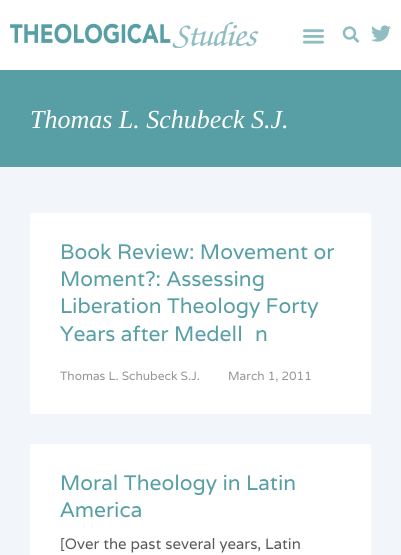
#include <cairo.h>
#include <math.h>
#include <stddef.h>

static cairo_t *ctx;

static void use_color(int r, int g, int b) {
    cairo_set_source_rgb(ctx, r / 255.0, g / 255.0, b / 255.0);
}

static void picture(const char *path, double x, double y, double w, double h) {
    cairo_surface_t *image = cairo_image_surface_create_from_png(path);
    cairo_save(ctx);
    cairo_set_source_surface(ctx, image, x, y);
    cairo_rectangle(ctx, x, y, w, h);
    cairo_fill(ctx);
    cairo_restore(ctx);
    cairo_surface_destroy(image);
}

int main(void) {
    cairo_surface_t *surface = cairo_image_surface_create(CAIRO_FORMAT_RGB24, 401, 555);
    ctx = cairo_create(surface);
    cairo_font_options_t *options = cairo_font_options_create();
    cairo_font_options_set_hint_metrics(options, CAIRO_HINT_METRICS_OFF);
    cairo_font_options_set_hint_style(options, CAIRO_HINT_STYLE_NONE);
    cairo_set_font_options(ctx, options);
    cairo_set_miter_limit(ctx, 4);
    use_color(242, 245, 249);
    cairo_paint(ctx);
    use_color(255, 255, 255);
    cairo_rectangle(ctx, 0, 0, 401, 70);
    cairo_fill(ctx);
    picture("img1.png", 10, 22, 249, 26);
    picture("img2.png", 303, 29, 21, 15);
    picture("img3.png", 342, 26, 18, 17);
    picture("img4.png", 371, 25, 20, 17);
    use_color(87, 159, 165);
    cairo_rectangle(ctx, 0, 70, 401, 97);
    cairo_fill(ctx);
    cairo_select_font_face(ctx, "Liberation Serif", CAIRO_FONT_SLANT_ITALIC, CAIRO_FONT_WEIGHT_NORMAL);
    cairo_set_font_size(ctx, 26);
    use_color(255, 255, 255);
    cairo_move_to(ctx, 30, 128);
    cairo_show_text(ctx, "Thomas L. Schubeck S.J.");
    cairo_rectangle(ctx, 30, 213, 341, 201);
    cairo_fill(ctx);
    cairo_select_font_face(ctx, "Varela", CAIRO_FONT_SLANT_NORMAL, CAIRO_FONT_WEIGHT_NORMAL);
    cairo_set_font_size(ctx, 21);
    use_color(87, 159, 165);
    cairo_move_to(ctx, 60, 259);
    cairo_show_text(ctx, "Book Review: Movement or");
    cairo_move_to(ctx, 60, 286);
    cairo_show_text(ctx, "Moment?: Assessing");
    cairo_move_to(ctx, 60, 313);
    cairo_show_text(ctx, "Liberation Theology Forty");
    cairo_move_to(ctx, 60, 341);
    cairo_show_text(ctx, "Years after Medell");
    cairo_move_to(ctx, 255, 341);
    cairo_show_text(ctx, "n");
    cairo_set_font_size(ctx, 12);
    use_color(147, 149, 152);
    cairo_move_to(ctx, 60, 380);
    cairo_show_text(ctx, "Thomas L. Schubeck S.J.");
    cairo_move_to(ctx, 228, 380);
    cairo_show_text(ctx, "March 1, 2011");
    use_color(255, 255, 255);
    cairo_rectangle(ctx, 30, 444, 341, 111);
    cairo_fill(ctx);
    cairo_set_font_size(ctx, 21);
    use_color(87, 159, 165);
    cairo_move_to(ctx, 60, 490);
    cairo_show_text(ctx, "Moral Theology in Latin");
    cairo_move_to(ctx, 60, 517);
    cairo_show_text(ctx, "America");
    cairo_set_font_size(ctx, 15);
    use_color(88, 89, 91);
    cairo_move_to(ctx, 60, 549);
    cairo_show_text(ctx, "[Over the past several years, Latin");
    cairo_surface_write_to_png(surface, "result.png");
    cairo_font_options_destroy(options);
    cairo_destroy(ctx);
    cairo_surface_destroy(surface);
    return 0;
}
